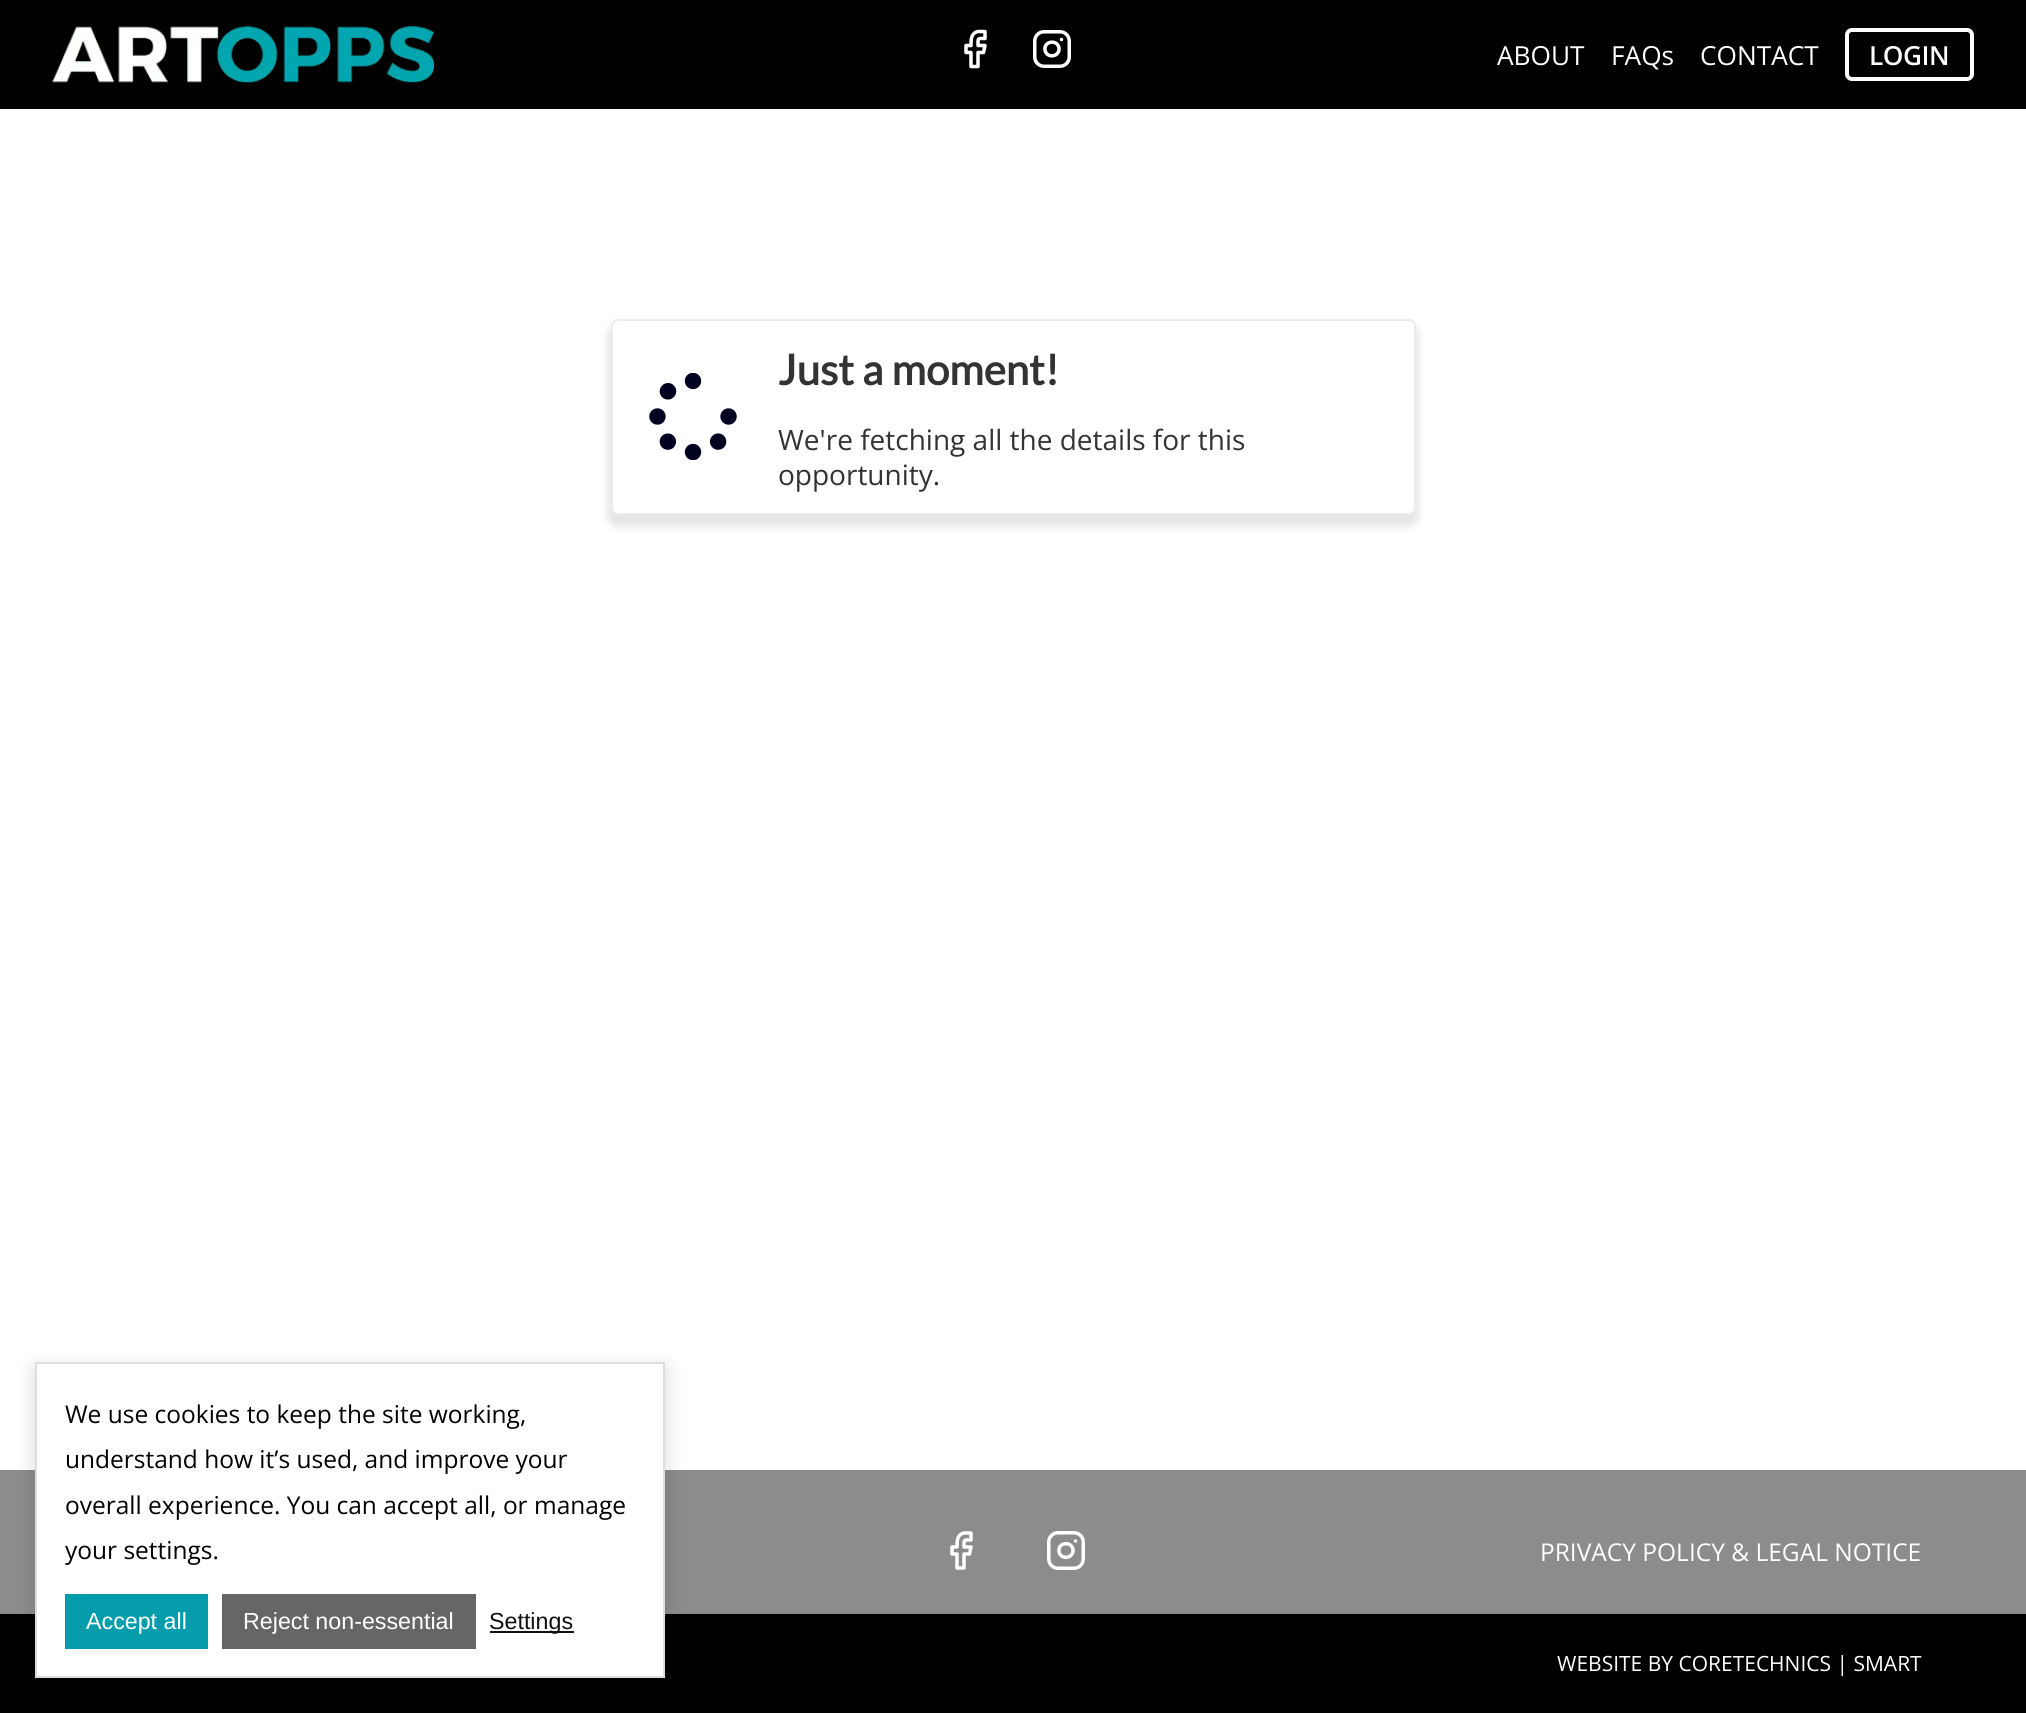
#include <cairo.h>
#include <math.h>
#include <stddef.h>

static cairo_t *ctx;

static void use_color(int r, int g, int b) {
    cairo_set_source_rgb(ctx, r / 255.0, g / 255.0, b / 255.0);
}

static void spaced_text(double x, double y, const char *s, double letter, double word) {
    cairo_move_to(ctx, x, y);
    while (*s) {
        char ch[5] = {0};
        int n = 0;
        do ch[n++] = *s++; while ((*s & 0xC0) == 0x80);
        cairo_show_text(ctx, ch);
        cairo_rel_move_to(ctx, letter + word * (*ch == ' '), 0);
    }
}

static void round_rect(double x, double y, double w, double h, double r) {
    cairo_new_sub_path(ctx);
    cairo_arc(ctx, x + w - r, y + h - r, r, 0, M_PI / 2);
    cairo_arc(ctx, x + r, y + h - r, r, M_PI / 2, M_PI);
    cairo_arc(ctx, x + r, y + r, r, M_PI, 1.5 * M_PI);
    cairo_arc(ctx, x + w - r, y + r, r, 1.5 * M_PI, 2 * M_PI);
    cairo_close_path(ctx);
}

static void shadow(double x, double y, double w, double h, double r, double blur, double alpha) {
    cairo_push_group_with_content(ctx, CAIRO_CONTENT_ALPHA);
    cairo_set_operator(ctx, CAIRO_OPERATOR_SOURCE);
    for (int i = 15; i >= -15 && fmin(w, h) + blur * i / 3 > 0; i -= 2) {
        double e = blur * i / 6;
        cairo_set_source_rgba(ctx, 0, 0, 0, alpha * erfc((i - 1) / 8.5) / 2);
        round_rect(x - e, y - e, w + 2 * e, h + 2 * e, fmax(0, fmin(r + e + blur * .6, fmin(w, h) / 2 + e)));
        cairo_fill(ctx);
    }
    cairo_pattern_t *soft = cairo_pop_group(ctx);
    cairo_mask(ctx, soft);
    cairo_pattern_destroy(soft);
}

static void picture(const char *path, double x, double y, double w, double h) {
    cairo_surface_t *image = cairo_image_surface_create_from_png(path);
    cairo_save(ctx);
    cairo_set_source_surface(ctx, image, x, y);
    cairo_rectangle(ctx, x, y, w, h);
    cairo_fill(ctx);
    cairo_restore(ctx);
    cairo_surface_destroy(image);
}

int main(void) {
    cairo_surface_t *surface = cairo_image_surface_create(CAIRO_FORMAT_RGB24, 2026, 1713);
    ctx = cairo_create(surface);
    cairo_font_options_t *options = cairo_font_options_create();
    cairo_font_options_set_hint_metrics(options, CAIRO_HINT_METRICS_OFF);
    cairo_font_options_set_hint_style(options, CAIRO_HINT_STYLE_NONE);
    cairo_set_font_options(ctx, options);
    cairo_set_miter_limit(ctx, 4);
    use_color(255, 255, 255);
    cairo_paint(ctx);
    use_color(0, 0, 0);
    cairo_rectangle(ctx, 0, 0, 2026, 109);
    cairo_fill(ctx);
    picture("img1.png", 52, 26, 382, 57);
    cairo_new_path(ctx);
    cairo_move_to(ctx, 985, 31.5);
    cairo_line_to(ctx, 978, 31.5);
    cairo_curve_to(ctx, 971, 33, 971, 39.5, 971, 45.5);
    cairo_line_to(ctx, 966, 45.5);
    cairo_line_to(ctx, 966, 52.5);
    cairo_line_to(ctx, 971, 52.5);
    cairo_line_to(ctx, 971, 66.5);
    cairo_line_to(ctx, 978, 66.5);
    cairo_line_to(ctx, 978, 52.5);
    cairo_line_to(ctx, 983.5, 52.5);
    cairo_line_to(ctx, 985, 45.5);
    cairo_line_to(ctx, 978, 45.5);
    cairo_curve_to(ctx, 978, 37.5, 977.5, 38.5, 985, 38.5);
    cairo_close_path(ctx);
    use_color(255, 255, 255);
    cairo_set_line_width(ctx, 3.5);
    cairo_set_line_cap(ctx, CAIRO_LINE_CAP_ROUND);
    cairo_set_line_join(ctx, CAIRO_LINE_JOIN_ROUND);
    cairo_stroke(ctx);
    round_rect(1034.75, 31.75, 34.5, 34.5, 9.25);
    cairo_set_line_cap(ctx, CAIRO_LINE_CAP_BUTT);
    cairo_set_line_join(ctx, CAIRO_LINE_JOIN_MITER);
    cairo_stroke(ctx);
    cairo_new_path(ctx);
    cairo_move_to(ctx, 1059, 48);
    cairo_curve_to(ctx, 1060, 57, 1046.5, 59, 1045, 50);
    cairo_curve_to(ctx, 1043.5, 41, 1057.5, 39, 1059, 48);
    cairo_close_path(ctx);
    cairo_move_to(ctx, 1061.5, 39.5);
    cairo_line_to(ctx, 1061.5, 39.5);
    cairo_set_line_cap(ctx, CAIRO_LINE_CAP_ROUND);
    cairo_set_line_join(ctx, CAIRO_LINE_JOIN_ROUND);
    cairo_stroke(ctx);
    cairo_select_font_face(ctx, "Open Sans", CAIRO_FONT_SLANT_NORMAL, CAIRO_FONT_WEIGHT_NORMAL);
    cairo_set_font_size(ctx, 26.25);
    cairo_move_to(ctx, 1497, 65);
    cairo_show_text(ctx, "ABOUT");
    cairo_move_to(ctx, 1611, 65);
    cairo_show_text(ctx, "FAQs");
    cairo_move_to(ctx, 1700, 65);
    cairo_show_text(ctx, "CONTACT");
    round_rect(1847, 30, 125, 49, 5);
    cairo_set_line_width(ctx, 4);
    cairo_set_line_cap(ctx, CAIRO_LINE_CAP_BUTT);
    cairo_set_line_join(ctx, CAIRO_LINE_JOIN_MITER);
    cairo_stroke(ctx);
    cairo_select_font_face(ctx, "Open Sans SemiBold", CAIRO_FONT_SLANT_NORMAL, CAIRO_FONT_WEIGHT_NORMAL);
    spaced_text(1869, 65, "LOGIN", -0.5, 0);
    use_color(198, 198, 198);
    shadow(607, 324, 812, 203, 11, 3.5, 0.44);
    use_color(255, 255, 255);
    round_rect(612, 320, 803, 194, 6);
    cairo_fill_preserve(ctx);
    use_color(235, 235, 235);
    cairo_set_line_width(ctx, 2);
    cairo_stroke(ctx);
    picture("img2.png", 649, 373, 88, 87);
    cairo_select_font_face(ctx, "Lato", CAIRO_FONT_SLANT_NORMAL, CAIRO_FONT_WEIGHT_BOLD);
    cairo_set_font_size(ctx, 42);
    use_color(51, 51, 51);
    cairo_move_to(ctx, 778, 385);
    cairo_show_text(ctx, "Just a moment!");
    cairo_select_font_face(ctx, "Open Sans", CAIRO_FONT_SLANT_NORMAL, CAIRO_FONT_WEIGHT_NORMAL);
    cairo_set_font_size(ctx, 28);
    cairo_move_to(ctx, 778, 450);
    cairo_show_text(ctx, "We're fetching all the details for this");
    cairo_move_to(ctx, 778, 485);
    cairo_show_text(ctx, "opportunity.");
    use_color(0, 0, 0);
    cairo_rectangle(ctx, 0, 1614, 2026, 99);
    cairo_fill(ctx);
    use_color(140, 140, 140);
    cairo_rectangle(ctx, 0, 1470, 2026, 144);
    cairo_fill(ctx);
    use_color(0, 0, 0);
    shadow(35, 1369, 630, 316, 0, 10.5, 0.15);
    use_color(255, 255, 255);
    cairo_rectangle(ctx, 36, 1363, 628, 314);
    cairo_fill_preserve(ctx);
    use_color(221, 221, 221);
    cairo_stroke(ctx);
    cairo_set_font_size(ctx, 24.5);
    use_color(0, 0, 0);
    cairo_move_to(ctx, 65, 1423);
    cairo_show_text(ctx, "We use cookies to keep the site working,");
    cairo_move_to(ctx, 65, 1468);
    cairo_show_text(ctx, "understand how it’s used, and improve your");
    cairo_move_to(ctx, 65, 1514);
    cairo_show_text(ctx, "overall experience. You can accept all, or manage");
    cairo_move_to(ctx, 65, 1559);
    cairo_show_text(ctx, "your settings.");
    use_color(5, 157, 172);
    cairo_rectangle(ctx, 65, 1594, 143, 55);
    cairo_fill(ctx);
    cairo_select_font_face(ctx, "Liberation Sans", CAIRO_FONT_SLANT_NORMAL, CAIRO_FONT_WEIGHT_NORMAL);
    cairo_set_font_size(ctx, 23.25);
    use_color(255, 255, 255);
    cairo_move_to(ctx, 86, 1629);
    cairo_show_text(ctx, "Accept all");
    use_color(102, 102, 102);
    cairo_rectangle(ctx, 222, 1594, 254, 55);
    cairo_fill(ctx);
    use_color(255, 255, 255);
    cairo_move_to(ctx, 243, 1629);
    cairo_show_text(ctx, "Reject non-essential");
    use_color(17, 17, 17);
    cairo_rectangle(ctx, 490, 1631, 84, 2);
    cairo_fill(ctx);
    cairo_move_to(ctx, 489, 1629);
    cairo_show_text(ctx, "Settings");
    cairo_new_path(ctx);
    cairo_move_to(ctx, 971, 1533);
    cairo_line_to(ctx, 964, 1533);
    cairo_curve_to(ctx, 957, 1534.5, 957, 1541, 957, 1547);
    cairo_line_to(ctx, 952, 1547);
    cairo_line_to(ctx, 952, 1554);
    cairo_line_to(ctx, 957, 1554);
    cairo_line_to(ctx, 957, 1568);
    cairo_line_to(ctx, 964, 1568);
    cairo_line_to(ctx, 964, 1554);
    cairo_line_to(ctx, 969.5, 1554);
    cairo_line_to(ctx, 971, 1547);
    cairo_line_to(ctx, 964, 1547);
    cairo_curve_to(ctx, 964, 1539, 963.5, 1540, 971, 1540);
    cairo_close_path(ctx);
    use_color(255, 255, 255);
    cairo_set_line_width(ctx, 3.5);
    cairo_set_line_cap(ctx, CAIRO_LINE_CAP_ROUND);
    cairo_set_line_join(ctx, CAIRO_LINE_JOIN_ROUND);
    cairo_stroke(ctx);
    round_rect(1048.75, 1532.75, 34.5, 35.5, 9.25);
    cairo_set_line_cap(ctx, CAIRO_LINE_CAP_BUTT);
    cairo_set_line_join(ctx, CAIRO_LINE_JOIN_MITER);
    cairo_stroke(ctx);
    cairo_new_path(ctx);
    cairo_move_to(ctx, 1073, 1549.5);
    cairo_curve_to(ctx, 1074, 1558.5, 1060.5, 1560.5, 1059, 1551.5);
    cairo_curve_to(ctx, 1057.5, 1542.5, 1071.5, 1540.5, 1073, 1549.5);
    cairo_close_path(ctx);
    cairo_move_to(ctx, 1075.5, 1541);
    cairo_line_to(ctx, 1075.5, 1541);
    cairo_set_line_cap(ctx, CAIRO_LINE_CAP_ROUND);
    cairo_set_line_join(ctx, CAIRO_LINE_JOIN_ROUND);
    cairo_stroke(ctx);
    cairo_select_font_face(ctx, "Open Sans", CAIRO_FONT_SLANT_NORMAL, CAIRO_FONT_WEIGHT_NORMAL);
    cairo_set_font_size(ctx, 24.5);
    cairo_move_to(ctx, 1540, 1561);
    cairo_show_text(ctx, "PRIVACY POLICY & LEGAL NOTICE");
    cairo_set_font_size(ctx, 21);
    cairo_move_to(ctx, 1557, 1671);
    cairo_show_text(ctx, "WEBSITE BY CORETECHNICS | SMART");
    cairo_surface_write_to_png(surface, "result.png");
    cairo_font_options_destroy(options);
    cairo_destroy(ctx);
    cairo_surface_destroy(surface);
    return 0;
}
